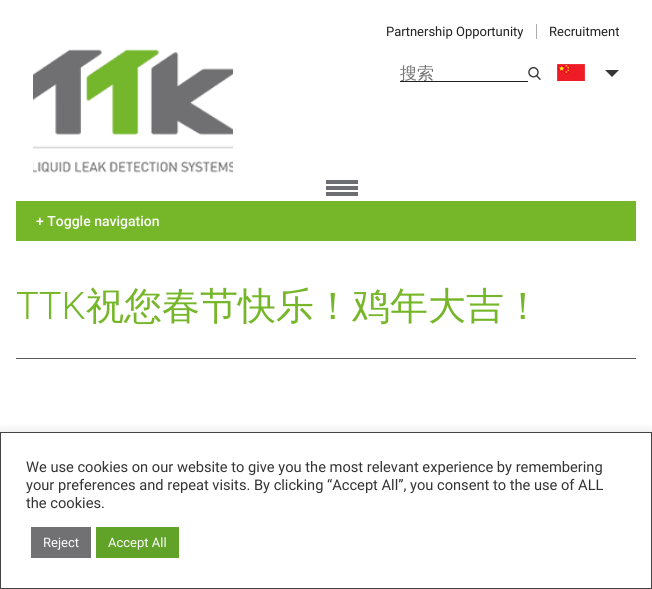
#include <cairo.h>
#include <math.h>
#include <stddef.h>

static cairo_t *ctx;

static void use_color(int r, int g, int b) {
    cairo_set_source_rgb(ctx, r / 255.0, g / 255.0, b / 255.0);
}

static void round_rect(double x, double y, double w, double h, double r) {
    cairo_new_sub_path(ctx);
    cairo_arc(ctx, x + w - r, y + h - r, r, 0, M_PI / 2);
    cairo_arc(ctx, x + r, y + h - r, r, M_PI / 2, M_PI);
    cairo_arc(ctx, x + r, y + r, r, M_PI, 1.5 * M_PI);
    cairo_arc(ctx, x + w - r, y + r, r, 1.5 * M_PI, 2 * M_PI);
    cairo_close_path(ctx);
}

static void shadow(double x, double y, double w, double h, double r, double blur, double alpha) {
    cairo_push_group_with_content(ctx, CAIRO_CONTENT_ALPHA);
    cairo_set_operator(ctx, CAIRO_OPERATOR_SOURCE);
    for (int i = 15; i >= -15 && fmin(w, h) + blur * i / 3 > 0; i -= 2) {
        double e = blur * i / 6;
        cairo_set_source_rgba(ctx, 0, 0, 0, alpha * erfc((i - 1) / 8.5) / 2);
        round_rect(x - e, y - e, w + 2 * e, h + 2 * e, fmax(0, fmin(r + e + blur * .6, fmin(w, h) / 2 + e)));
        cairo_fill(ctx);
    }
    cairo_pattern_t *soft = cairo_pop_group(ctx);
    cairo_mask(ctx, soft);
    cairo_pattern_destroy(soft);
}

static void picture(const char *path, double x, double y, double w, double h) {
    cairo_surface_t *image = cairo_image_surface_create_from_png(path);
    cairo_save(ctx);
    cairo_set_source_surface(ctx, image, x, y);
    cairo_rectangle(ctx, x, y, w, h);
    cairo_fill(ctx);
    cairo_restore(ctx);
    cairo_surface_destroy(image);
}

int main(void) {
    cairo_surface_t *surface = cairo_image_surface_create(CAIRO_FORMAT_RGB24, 652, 589);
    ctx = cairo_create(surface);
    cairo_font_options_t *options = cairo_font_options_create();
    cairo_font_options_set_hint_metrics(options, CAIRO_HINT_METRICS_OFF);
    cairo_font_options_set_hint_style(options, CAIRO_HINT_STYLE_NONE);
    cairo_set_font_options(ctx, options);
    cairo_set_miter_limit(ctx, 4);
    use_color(255, 255, 255);
    cairo_paint(ctx);
    picture("img1.png", 33, 49, 200, 124);
    use_color(174, 174, 174);
    cairo_rectangle(ctx, 536, 24, 1, 15);
    cairo_fill(ctx);
    cairo_select_font_face(ctx, "Roboto", CAIRO_FONT_SLANT_NORMAL, CAIRO_FONT_WEIGHT_NORMAL);
    cairo_set_font_size(ctx, 13);
    use_color(32, 32, 32);
    cairo_move_to(ctx, 386, 36);
    cairo_show_text(ctx, "Partnership Opportunity");
    cairo_move_to(ctx, 549, 36);
    cairo_show_text(ctx, "Recruitment");
    cairo_rectangle(ctx, 400, 81, 128, 1);
    cairo_fill(ctx);
    cairo_save(ctx);
    cairo_rectangle(ctx, 400, 65, 128, 16);
    cairo_clip(ctx);
    cairo_select_font_face(ctx, "WenQuanYi Zen Hei Medium", CAIRO_FONT_SLANT_NORMAL, CAIRO_FONT_WEIGHT_NORMAL);
    cairo_set_font_size(ctx, 17);
    use_color(117, 117, 117);
    cairo_move_to(ctx, 400, 79);
    cairo_show_text(ctx, "搜索");
    cairo_restore(ctx);
    picture("img2.png", 528, 67, 13, 13);
    picture("img3.png", 557, 64, 28, 17);
    use_color(53, 53, 53);
    cairo_new_path(ctx);
    cairo_move_to(ctx, 605, 70);
    cairo_line_to(ctx, 619, 70);
    cairo_line_to(ctx, 612, 77);
    cairo_close_path(ctx);
    cairo_fill(ctx);
    use_color(109, 110, 114);
    cairo_rectangle(ctx, 326, 192, 32, 4);
    cairo_fill(ctx);
    cairo_rectangle(ctx, 326, 180, 32, 4);
    cairo_fill(ctx);
    cairo_rectangle(ctx, 326, 186, 32, 4);
    cairo_fill(ctx);
    use_color(118, 183, 41);
    cairo_rectangle(ctx, 16, 201, 620, 40);
    cairo_fill(ctx);
    cairo_select_font_face(ctx, "Roboto Medium", CAIRO_FONT_SLANT_NORMAL, CAIRO_FONT_WEIGHT_NORMAL);
    cairo_set_font_size(ctx, 14);
    use_color(255, 255, 255);
    cairo_move_to(ctx, 36, 226);
    cairo_show_text(ctx, "+ Toggle navigation");
    use_color(90, 91, 92);
    cairo_rectangle(ctx, 16, 358, 620, 1);
    cairo_fill(ctx);
    cairo_select_font_face(ctx, "Roboto Light", CAIRO_FONT_SLANT_NORMAL, CAIRO_FONT_WEIGHT_NORMAL);
    cairo_set_font_size(ctx, 38);
    use_color(118, 183, 41);
    cairo_move_to(ctx, 16, 319);
    cairo_show_text(ctx, "TTK");
    cairo_select_font_face(ctx, "WenQuanYi Zen Hei Medium", CAIRO_FONT_SLANT_NORMAL, CAIRO_FONT_WEIGHT_NORMAL);
    cairo_move_to(ctx, 86, 319);
    cairo_show_text(ctx, "祝您春节快乐！鸡年大吉！");
    cairo_save(ctx);
    cairo_rectangle(ctx, 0, 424, 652, 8);
    cairo_clip(ctx);
    use_color(172, 171, 171);
    shadow(0, 431, 652, 157, 0, 5, 0.3);
    cairo_restore(ctx);
    cairo_rectangle(ctx, 0.5, 432.5, 651, 156);
    use_color(68, 68, 68);
    cairo_set_line_width(ctx, 1);
    cairo_stroke(ctx);
    cairo_select_font_face(ctx, "Roboto", CAIRO_FONT_SLANT_NORMAL, CAIRO_FONT_WEIGHT_NORMAL);
    cairo_set_font_size(ctx, 14.65);
    use_color(51, 51, 51);
    cairo_move_to(ctx, 26, 472);
    cairo_show_text(ctx, "We use cookies on our website to give you the most relevant experience by remembering");
    cairo_move_to(ctx, 26, 490);
    cairo_show_text(ctx, "your preferences and repeat visits. By clicking “Accept All”, you consent to the use of ALL");
    cairo_move_to(ctx, 26, 508);
    cairo_show_text(ctx, "the cookies.");
    use_color(113, 112, 114);
    cairo_rectangle(ctx, 31, 527, 60, 31);
    cairo_fill(ctx);
    cairo_set_font_size(ctx, 13);
    use_color(255, 255, 255);
    cairo_move_to(ctx, 43, 547);
    cairo_show_text(ctx, "Reject");
    use_color(97, 162, 41);
    cairo_rectangle(ctx, 96, 527, 83, 31);
    cairo_fill(ctx);
    use_color(255, 255, 255);
    cairo_move_to(ctx, 108, 547);
    cairo_show_text(ctx, "Accept All");
    cairo_surface_write_to_png(surface, "result.png");
    cairo_font_options_destroy(options);
    cairo_destroy(ctx);
    cairo_surface_destroy(surface);
    return 0;
}
